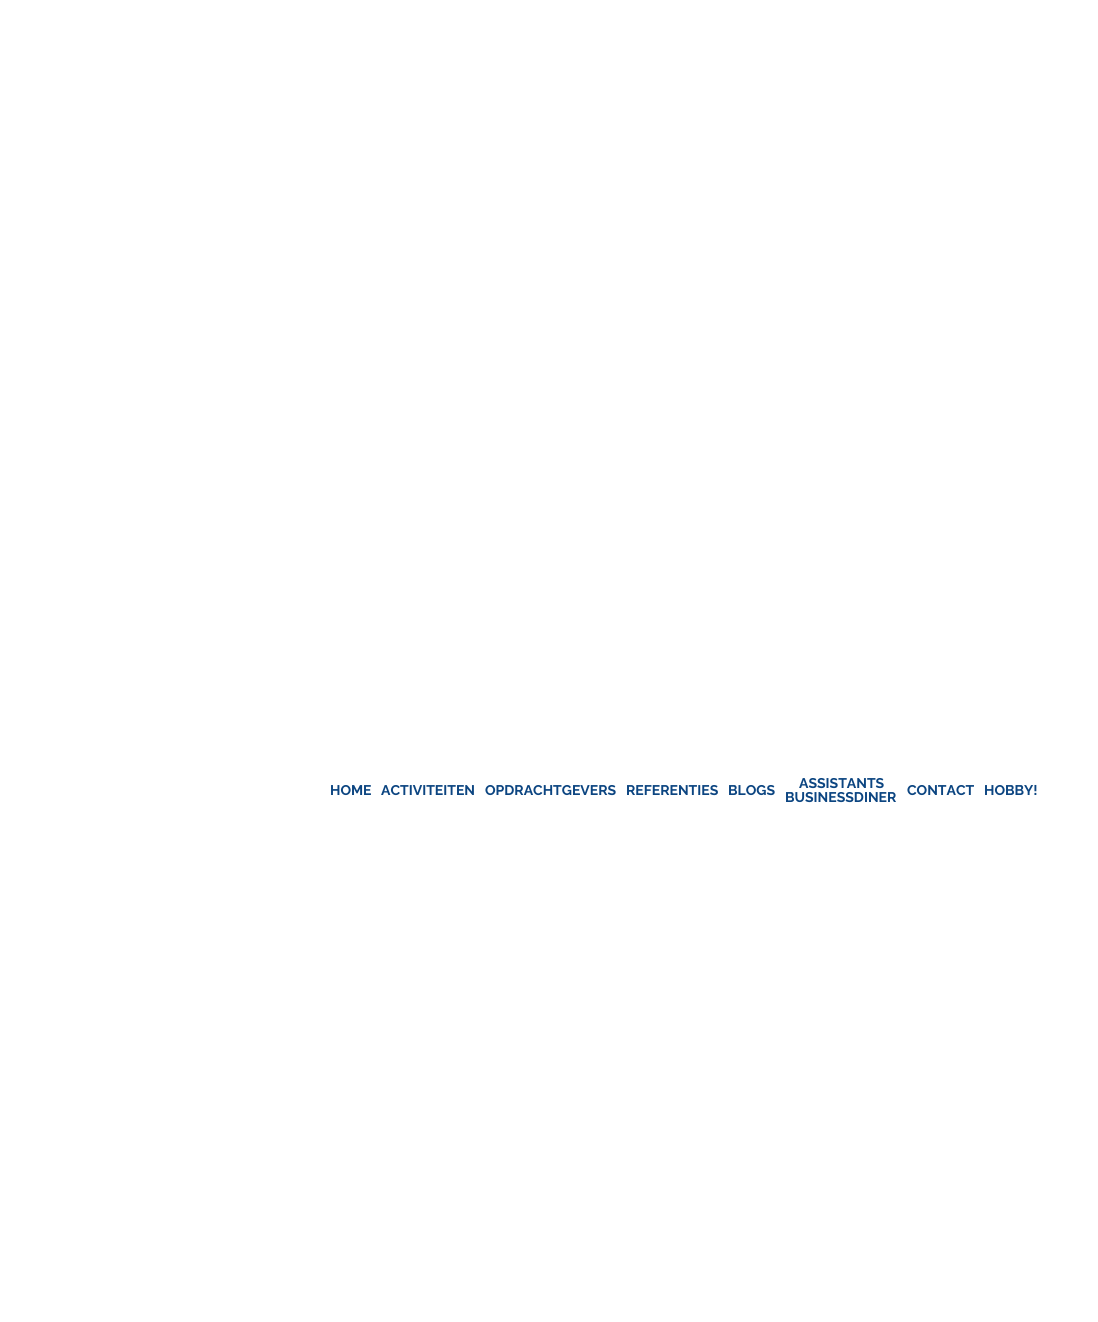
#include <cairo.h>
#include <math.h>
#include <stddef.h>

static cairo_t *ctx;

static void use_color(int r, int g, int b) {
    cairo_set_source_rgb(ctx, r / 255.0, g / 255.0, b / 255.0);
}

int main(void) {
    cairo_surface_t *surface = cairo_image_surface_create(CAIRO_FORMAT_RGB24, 1098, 1322);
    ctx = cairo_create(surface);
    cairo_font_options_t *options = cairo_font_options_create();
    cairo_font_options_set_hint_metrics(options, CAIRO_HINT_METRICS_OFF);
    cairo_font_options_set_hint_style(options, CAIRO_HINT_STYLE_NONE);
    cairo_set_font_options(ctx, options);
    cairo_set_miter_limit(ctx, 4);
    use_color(255, 255, 255);
    cairo_paint(ctx);
    cairo_select_font_face(ctx, "Raleway Thin", CAIRO_FONT_SLANT_NORMAL, CAIRO_FONT_WEIGHT_NORMAL);
    cairo_set_font_size(ctx, 14);
    use_color(12, 69, 129);
    cairo_move_to(ctx, 330, 795);
    cairo_show_text(ctx, "HOME");
    cairo_move_to(ctx, 381, 795);
    cairo_show_text(ctx, "ACTIVITEITEN");
    cairo_move_to(ctx, 485, 795);
    cairo_show_text(ctx, "OPDRACHTGEVERS");
    cairo_move_to(ctx, 626, 795);
    cairo_show_text(ctx, "REFERENTIES");
    cairo_move_to(ctx, 728, 795);
    cairo_show_text(ctx, "BLOGS");
    cairo_move_to(ctx, 799, 788);
    cairo_show_text(ctx, "ASSISTANTS");
    cairo_move_to(ctx, 785, 802);
    cairo_show_text(ctx, "BUSINESSDINER");
    cairo_move_to(ctx, 907, 795);
    cairo_show_text(ctx, "CONTACT");
    cairo_move_to(ctx, 984, 795);
    cairo_show_text(ctx, "HOBBY!");
    cairo_surface_write_to_png(surface, "result.png");
    cairo_font_options_destroy(options);
    cairo_destroy(ctx);
    cairo_surface_destroy(surface);
    return 0;
}
